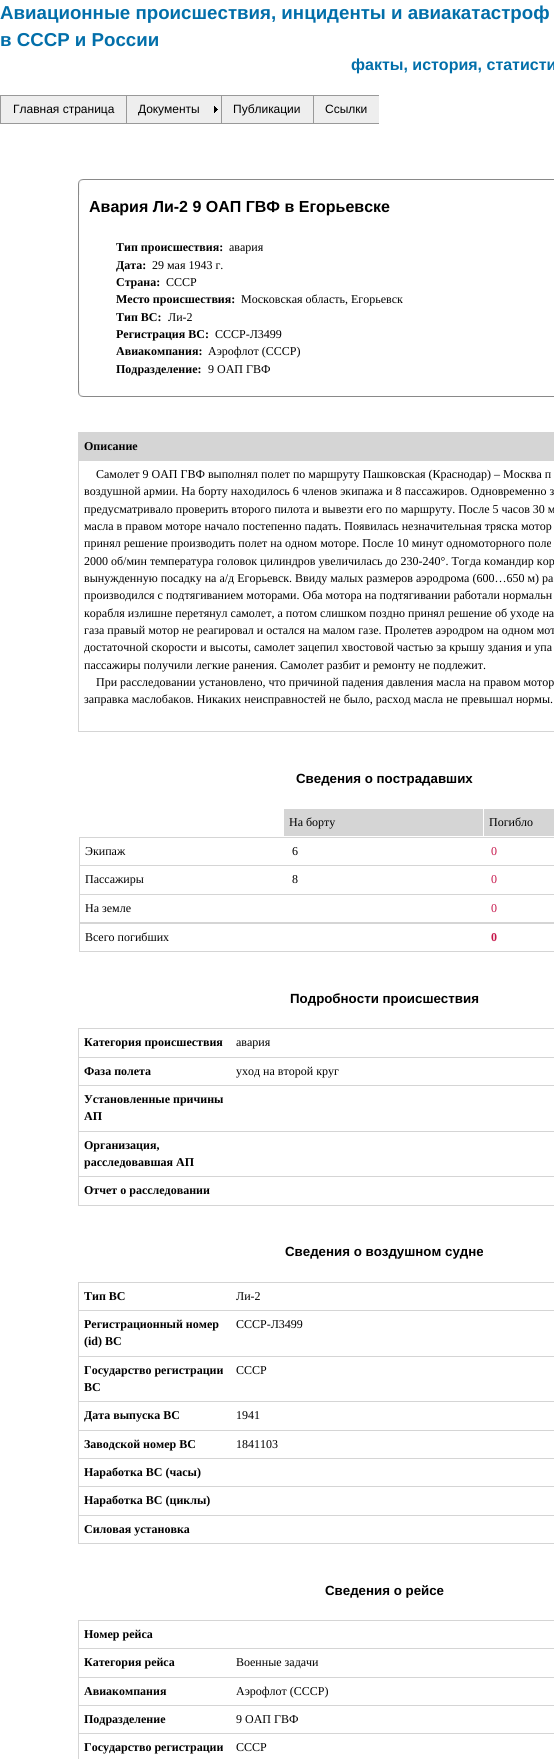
#include <cairo.h>
#include <math.h>
#include <stddef.h>

static cairo_t *ctx;

static void use_color(int r, int g, int b) {
    cairo_set_source_rgb(ctx, r / 255.0, g / 255.0, b / 255.0);
}

static void picture(const char *path, double x, double y, double w, double h) {
    cairo_surface_t *image = cairo_image_surface_create_from_png(path);
    cairo_save(ctx);
    cairo_set_source_surface(ctx, image, x, y);
    cairo_rectangle(ctx, x, y, w, h);
    cairo_fill(ctx);
    cairo_restore(ctx);
    cairo_surface_destroy(image);
}

int main(void) {
    cairo_surface_t *surface = cairo_image_surface_create(CAIRO_FORMAT_RGB24, 554, 1759);
    ctx = cairo_create(surface);
    cairo_font_options_t *options = cairo_font_options_create();
    cairo_font_options_set_hint_metrics(options, CAIRO_HINT_METRICS_OFF);
    cairo_font_options_set_hint_style(options, CAIRO_HINT_STYLE_NONE);
    cairo_set_font_options(ctx, options);
    cairo_set_miter_limit(ctx, 4);
    use_color(255, 255, 255);
    cairo_paint(ctx);
    cairo_select_font_face(ctx, "Liberation Sans", CAIRO_FONT_SLANT_NORMAL, CAIRO_FONT_WEIGHT_BOLD);
    cairo_set_font_size(ctx, 18.7);
    use_color(2, 111, 170);
    cairo_move_to(ctx, 0, 19);
    cairo_show_text(ctx, "Авиационные происшествия, инциденты и авиакатастроф");
    cairo_move_to(ctx, 0, 46);
    cairo_show_text(ctx, "в СССР и России");
    cairo_set_font_size(ctx, 16);
    cairo_move_to(ctx, 351, 70);
    cairo_show_text(ctx, "факты, история, статисти");
    use_color(238, 238, 238);
    cairo_rectangle(ctx, 1, 96, 312, 27);
    cairo_fill(ctx);
    cairo_rectangle(ctx, 0.5, 95.5, 378, 28);
    use_color(153, 153, 153);
    cairo_set_line_width(ctx, 1);
    cairo_stroke(ctx);
    cairo_select_font_face(ctx, "Liberation Sans", CAIRO_FONT_SLANT_NORMAL, CAIRO_FONT_WEIGHT_NORMAL);
    cairo_set_font_size(ctx, 12);
    use_color(0, 0, 0);
    cairo_move_to(ctx, 13, 113);
    cairo_show_text(ctx, "Главная страница");
    use_color(153, 153, 153);
    cairo_rectangle(ctx, 126, 96, 1, 27);
    cairo_fill(ctx);
    use_color(0, 0, 0);
    cairo_move_to(ctx, 138, 113);
    cairo_show_text(ctx, "Документы");
    picture("img1.png", 214, 106, 4, 7);
    use_color(153, 153, 153);
    cairo_rectangle(ctx, 221, 96, 1, 27);
    cairo_fill(ctx);
    use_color(0, 0, 0);
    cairo_move_to(ctx, 233, 113);
    cairo_show_text(ctx, "Публикации");
    use_color(153, 153, 153);
    cairo_rectangle(ctx, 313, 96, 1, 27);
    cairo_fill(ctx);
    use_color(238, 238, 238);
    cairo_rectangle(ctx, 314, 96, 65, 27);
    cairo_fill(ctx);
    use_color(0, 0, 0);
    cairo_move_to(ctx, 325, 113);
    cairo_show_text(ctx, "Ссылки");
    picture("img2.png", 78, 179, 476, 16);
    use_color(137, 137, 137);
    cairo_rectangle(ctx, 78, 195, 1, 186);
    cairo_fill(ctx);
    cairo_select_font_face(ctx, "Liberation Sans", CAIRO_FONT_SLANT_NORMAL, CAIRO_FONT_WEIGHT_BOLD);
    cairo_set_font_size(ctx, 16);
    use_color(0, 0, 0);
    cairo_move_to(ctx, 89, 212);
    cairo_show_text(ctx, "Авария Ли-2 9 ОАП ГВФ в Егорьевске");
    cairo_select_font_face(ctx, "Liberation Serif", CAIRO_FONT_SLANT_NORMAL, CAIRO_FONT_WEIGHT_BOLD);
    cairo_set_font_size(ctx, 12);
    cairo_move_to(ctx, 116, 251);
    cairo_show_text(ctx, "Тип происшествия:");
    cairo_select_font_face(ctx, "Liberation Serif", CAIRO_FONT_SLANT_NORMAL, CAIRO_FONT_WEIGHT_NORMAL);
    cairo_move_to(ctx, 229, 251);
    cairo_show_text(ctx, "авария");
    cairo_select_font_face(ctx, "Liberation Serif", CAIRO_FONT_SLANT_NORMAL, CAIRO_FONT_WEIGHT_BOLD);
    cairo_move_to(ctx, 116, 269);
    cairo_show_text(ctx, "Дата:");
    cairo_select_font_face(ctx, "Liberation Serif", CAIRO_FONT_SLANT_NORMAL, CAIRO_FONT_WEIGHT_NORMAL);
    cairo_move_to(ctx, 152, 269);
    cairo_show_text(ctx, "29 мая 1943 г.");
    cairo_select_font_face(ctx, "Liberation Serif", CAIRO_FONT_SLANT_NORMAL, CAIRO_FONT_WEIGHT_BOLD);
    cairo_move_to(ctx, 116, 286);
    cairo_show_text(ctx, "Страна:");
    cairo_select_font_face(ctx, "Liberation Serif", CAIRO_FONT_SLANT_NORMAL, CAIRO_FONT_WEIGHT_NORMAL);
    cairo_move_to(ctx, 166, 286);
    cairo_show_text(ctx, "СССР");
    cairo_select_font_face(ctx, "Liberation Serif", CAIRO_FONT_SLANT_NORMAL, CAIRO_FONT_WEIGHT_BOLD);
    cairo_move_to(ctx, 116, 303);
    cairo_show_text(ctx, "Место происшествия:");
    cairo_select_font_face(ctx, "Liberation Serif", CAIRO_FONT_SLANT_NORMAL, CAIRO_FONT_WEIGHT_NORMAL);
    cairo_move_to(ctx, 241, 303);
    cairo_show_text(ctx, "Московская область, Егорьевск");
    cairo_select_font_face(ctx, "Liberation Serif", CAIRO_FONT_SLANT_NORMAL, CAIRO_FONT_WEIGHT_BOLD);
    cairo_move_to(ctx, 116, 321);
    cairo_show_text(ctx, "Тип ВС:");
    cairo_select_font_face(ctx, "Liberation Serif", CAIRO_FONT_SLANT_NORMAL, CAIRO_FONT_WEIGHT_NORMAL);
    cairo_move_to(ctx, 168, 321);
    cairo_show_text(ctx, "Ли-2");
    cairo_select_font_face(ctx, "Liberation Serif", CAIRO_FONT_SLANT_NORMAL, CAIRO_FONT_WEIGHT_BOLD);
    cairo_move_to(ctx, 116, 338);
    cairo_show_text(ctx, "Регистрация ВС:");
    cairo_select_font_face(ctx, "Liberation Serif", CAIRO_FONT_SLANT_NORMAL, CAIRO_FONT_WEIGHT_NORMAL);
    cairo_move_to(ctx, 215, 338);
    cairo_show_text(ctx, "СССР-Л3499");
    cairo_select_font_face(ctx, "Liberation Serif", CAIRO_FONT_SLANT_NORMAL, CAIRO_FONT_WEIGHT_BOLD);
    cairo_move_to(ctx, 116, 355);
    cairo_show_text(ctx, "Авиакомпания:");
    cairo_select_font_face(ctx, "Liberation Serif", CAIRO_FONT_SLANT_NORMAL, CAIRO_FONT_WEIGHT_NORMAL);
    cairo_move_to(ctx, 208, 355);
    cairo_show_text(ctx, "Аэрофлот (СССР)");
    cairo_select_font_face(ctx, "Liberation Serif", CAIRO_FONT_SLANT_NORMAL, CAIRO_FONT_WEIGHT_BOLD);
    cairo_move_to(ctx, 116, 373);
    cairo_show_text(ctx, "Подразделение:");
    cairo_select_font_face(ctx, "Liberation Serif", CAIRO_FONT_SLANT_NORMAL, CAIRO_FONT_WEIGHT_NORMAL);
    cairo_move_to(ctx, 208, 373);
    cairo_show_text(ctx, "9 ОАП ГВФ");
    picture("img3.png", 78, 381, 476, 16);
    use_color(213, 213, 213);
    cairo_rectangle(ctx, 78, 432, 476, 300);
    cairo_fill(ctx);
    cairo_select_font_face(ctx, "Liberation Serif", CAIRO_FONT_SLANT_NORMAL, CAIRO_FONT_WEIGHT_BOLD);
    use_color(0, 0, 0);
    cairo_move_to(ctx, 84, 450);
    cairo_show_text(ctx, "Описание");
    use_color(255, 255, 255);
    cairo_rectangle(ctx, 79, 461, 475, 270);
    cairo_fill(ctx);
    cairo_select_font_face(ctx, "Liberation Serif", CAIRO_FONT_SLANT_NORMAL, CAIRO_FONT_WEIGHT_NORMAL);
    use_color(0, 0, 0);
    cairo_move_to(ctx, 96, 478);
    cairo_show_text(ctx, "Самолет 9 ОАП ГВФ выполнял полет по маршруту Пашковская (Краснодар) – Москва п");
    cairo_move_to(ctx, 84, 495);
    cairo_show_text(ctx, "воздушной армии. На борту находилось 6 членов экипажа и 8 пассажиров. Одновременно з");
    cairo_move_to(ctx, 84, 513);
    cairo_show_text(ctx, "предусматривало проверить второго пилота и вывезти его по маршруту. После 5 часов 30 м");
    cairo_move_to(ctx, 84, 530);
    cairo_show_text(ctx, "масла в правом моторе начало постепенно падать. Появилась незначительная тряска мотор");
    cairo_move_to(ctx, 84, 547);
    cairo_show_text(ctx, "принял решение производить полет на одном моторе. После 10 минут одномоторного поле");
    cairo_move_to(ctx, 84, 565);
    cairo_show_text(ctx, "2000 об/мин температура головок цилиндров увеличилась до 230-240°. Тогда командир кор");
    cairo_move_to(ctx, 84, 582);
    cairo_show_text(ctx, "вынужденную посадку на а/д Егорьевск. Ввиду малых размеров аэродрома (600…650 м) ра");
    cairo_move_to(ctx, 84, 599);
    cairo_show_text(ctx, "производился с подтягиванием моторами. Оба мотора на подтягивании работали нормальн");
    cairo_move_to(ctx, 84, 617);
    cairo_show_text(ctx, "корабля излишне перетянул самолет, а потом слишком поздно принял решение об уходе на");
    cairo_move_to(ctx, 84, 634);
    cairo_show_text(ctx, "газа правый мотор не реагировал и остался на малом газе. Пролетев аэродром на одном мот");
    cairo_move_to(ctx, 84, 651);
    cairo_show_text(ctx, "достаточной скорости и высоты, самолет зацепил хвостовой частью за крышу здания и упа");
    cairo_move_to(ctx, 84, 669);
    cairo_show_text(ctx, "пассажиры получили легкие ранения. Самолет разбит и ремонту не подлежит.");
    cairo_move_to(ctx, 96, 686);
    cairo_show_text(ctx, "При расследовании установлено, что причиной падения давления масла на правом мотор");
    cairo_move_to(ctx, 84, 703);
    cairo_show_text(ctx, "заправка маслобаков. Никаких неисправностей не было, расход масла не превышал нормы.");
    cairo_select_font_face(ctx, "Liberation Sans", CAIRO_FONT_SLANT_NORMAL, CAIRO_FONT_WEIGHT_BOLD);
    cairo_set_font_size(ctx, 13.3);
    cairo_move_to(ctx, 296, 783);
    cairo_show_text(ctx, "Сведения о пострадавших");
    use_color(213, 213, 213);
    cairo_rectangle(ctx, 284, 809, 199, 27);
    cairo_fill(ctx);
    cairo_select_font_face(ctx, "Liberation Serif", CAIRO_FONT_SLANT_NORMAL, CAIRO_FONT_WEIGHT_NORMAL);
    cairo_set_font_size(ctx, 12);
    use_color(0, 0, 0);
    cairo_move_to(ctx, 289, 826);
    cairo_show_text(ctx, "На борту");
    use_color(213, 213, 213);
    cairo_rectangle(ctx, 484, 809, 70, 27);
    cairo_fill(ctx);
    use_color(0, 0, 0);
    cairo_move_to(ctx, 489, 826);
    cairo_show_text(ctx, "Погибло");
    use_color(213, 213, 213);
    cairo_rectangle(ctx, 79, 837, 475, 115);
    cairo_fill(ctx);
    use_color(255, 255, 255);
    cairo_rectangle(ctx, 80, 838, 474, 27);
    cairo_fill(ctx);
    use_color(0, 0, 0);
    cairo_move_to(ctx, 85, 855);
    cairo_show_text(ctx, "Экипаж");
    cairo_move_to(ctx, 292, 855);
    cairo_show_text(ctx, "6");
    use_color(198, 23, 75);
    cairo_move_to(ctx, 491, 855);
    cairo_show_text(ctx, "0");
    use_color(255, 255, 255);
    cairo_rectangle(ctx, 80, 866, 474, 28);
    cairo_fill(ctx);
    use_color(0, 0, 0);
    cairo_move_to(ctx, 85, 883);
    cairo_show_text(ctx, "Пассажиры");
    cairo_move_to(ctx, 292, 883);
    cairo_show_text(ctx, "8");
    use_color(198, 23, 75);
    cairo_move_to(ctx, 491, 883);
    cairo_show_text(ctx, "0");
    use_color(255, 255, 255);
    cairo_rectangle(ctx, 80, 895, 474, 27);
    cairo_fill(ctx);
    use_color(0, 0, 0);
    cairo_move_to(ctx, 85, 912);
    cairo_show_text(ctx, "На земле");
    use_color(198, 23, 75);
    cairo_move_to(ctx, 491, 912);
    cairo_show_text(ctx, "0");
    use_color(255, 255, 255);
    cairo_rectangle(ctx, 80, 924, 474, 27);
    cairo_fill(ctx);
    use_color(0, 0, 0);
    cairo_move_to(ctx, 85, 941);
    cairo_show_text(ctx, "Всего погибших");
    cairo_select_font_face(ctx, "Liberation Serif", CAIRO_FONT_SLANT_NORMAL, CAIRO_FONT_WEIGHT_BOLD);
    use_color(198, 23, 75);
    cairo_move_to(ctx, 491, 941);
    cairo_show_text(ctx, "0");
    cairo_select_font_face(ctx, "Liberation Sans", CAIRO_FONT_SLANT_NORMAL, CAIRO_FONT_WEIGHT_BOLD);
    cairo_set_font_size(ctx, 13.3);
    use_color(0, 0, 0);
    cairo_move_to(ctx, 290, 1003);
    cairo_show_text(ctx, "Подробности происшествия");
    use_color(213, 213, 213);
    cairo_rectangle(ctx, 78, 1028, 476, 178);
    cairo_fill(ctx);
    use_color(255, 255, 255);
    cairo_rectangle(ctx, 79, 1029, 475, 28);
    cairo_fill(ctx);
    cairo_select_font_face(ctx, "Liberation Serif", CAIRO_FONT_SLANT_NORMAL, CAIRO_FONT_WEIGHT_BOLD);
    cairo_set_font_size(ctx, 12);
    use_color(0, 0, 0);
    cairo_move_to(ctx, 84, 1046);
    cairo_show_text(ctx, "Категория происшествия");
    cairo_select_font_face(ctx, "Liberation Serif", CAIRO_FONT_SLANT_NORMAL, CAIRO_FONT_WEIGHT_NORMAL);
    cairo_move_to(ctx, 236, 1046);
    cairo_show_text(ctx, "авария");
    use_color(255, 255, 255);
    cairo_rectangle(ctx, 79, 1058, 475, 27);
    cairo_fill(ctx);
    cairo_select_font_face(ctx, "Liberation Serif", CAIRO_FONT_SLANT_NORMAL, CAIRO_FONT_WEIGHT_BOLD);
    use_color(0, 0, 0);
    cairo_move_to(ctx, 84, 1075);
    cairo_show_text(ctx, "Фаза полета");
    cairo_select_font_face(ctx, "Liberation Serif", CAIRO_FONT_SLANT_NORMAL, CAIRO_FONT_WEIGHT_NORMAL);
    cairo_move_to(ctx, 236, 1075);
    cairo_show_text(ctx, "уход на второй круг");
    use_color(255, 255, 255);
    cairo_rectangle(ctx, 79, 1086, 475, 45);
    cairo_fill(ctx);
    cairo_select_font_face(ctx, "Liberation Serif", CAIRO_FONT_SLANT_NORMAL, CAIRO_FONT_WEIGHT_BOLD);
    use_color(0, 0, 0);
    cairo_move_to(ctx, 84, 1103);
    cairo_show_text(ctx, "Установленные причины");
    cairo_move_to(ctx, 84, 1120);
    cairo_show_text(ctx, "АП");
    use_color(255, 255, 255);
    cairo_rectangle(ctx, 79, 1132, 475, 44);
    cairo_fill(ctx);
    use_color(0, 0, 0);
    cairo_move_to(ctx, 84, 1149);
    cairo_show_text(ctx, "Организация,");
    cairo_move_to(ctx, 84, 1166);
    cairo_show_text(ctx, "расследовавшая АП");
    use_color(255, 255, 255);
    cairo_rectangle(ctx, 79, 1177, 475, 28);
    cairo_fill(ctx);
    use_color(0, 0, 0);
    cairo_move_to(ctx, 84, 1194);
    cairo_show_text(ctx, "Отчет о расследовании");
    cairo_select_font_face(ctx, "Liberation Sans", CAIRO_FONT_SLANT_NORMAL, CAIRO_FONT_WEIGHT_BOLD);
    cairo_set_font_size(ctx, 13.3);
    cairo_move_to(ctx, 285, 1256);
    cairo_show_text(ctx, "Сведения о воздушном судне");
    use_color(213, 213, 213);
    cairo_rectangle(ctx, 78, 1282, 476, 262);
    cairo_fill(ctx);
    use_color(255, 255, 255);
    cairo_rectangle(ctx, 79, 1283, 475, 27);
    cairo_fill(ctx);
    cairo_select_font_face(ctx, "Liberation Serif", CAIRO_FONT_SLANT_NORMAL, CAIRO_FONT_WEIGHT_BOLD);
    cairo_set_font_size(ctx, 12);
    use_color(0, 0, 0);
    cairo_move_to(ctx, 84, 1300);
    cairo_show_text(ctx, "Тип ВС");
    cairo_select_font_face(ctx, "Liberation Serif", CAIRO_FONT_SLANT_NORMAL, CAIRO_FONT_WEIGHT_NORMAL);
    cairo_move_to(ctx, 236, 1300);
    cairo_show_text(ctx, "Ли-2");
    use_color(255, 255, 255);
    cairo_rectangle(ctx, 79, 1311, 475, 45);
    cairo_fill(ctx);
    cairo_select_font_face(ctx, "Liberation Serif", CAIRO_FONT_SLANT_NORMAL, CAIRO_FONT_WEIGHT_BOLD);
    use_color(0, 0, 0);
    cairo_move_to(ctx, 84, 1328);
    cairo_show_text(ctx, "Регистрационный номер");
    cairo_move_to(ctx, 84, 1345);
    cairo_show_text(ctx, "(id) ВС");
    cairo_select_font_face(ctx, "Liberation Serif", CAIRO_FONT_SLANT_NORMAL, CAIRO_FONT_WEIGHT_NORMAL);
    cairo_move_to(ctx, 236, 1328);
    cairo_show_text(ctx, "СССР-Л3499");
    use_color(255, 255, 255);
    cairo_rectangle(ctx, 79, 1357, 475, 44);
    cairo_fill(ctx);
    cairo_select_font_face(ctx, "Liberation Serif", CAIRO_FONT_SLANT_NORMAL, CAIRO_FONT_WEIGHT_BOLD);
    use_color(0, 0, 0);
    cairo_move_to(ctx, 84, 1374);
    cairo_show_text(ctx, "Государство регистрации");
    cairo_move_to(ctx, 84, 1391);
    cairo_show_text(ctx, "ВС");
    cairo_select_font_face(ctx, "Liberation Serif", CAIRO_FONT_SLANT_NORMAL, CAIRO_FONT_WEIGHT_NORMAL);
    cairo_move_to(ctx, 236, 1374);
    cairo_show_text(ctx, "СССР");
    use_color(255, 255, 255);
    cairo_rectangle(ctx, 79, 1402, 475, 28);
    cairo_fill(ctx);
    cairo_select_font_face(ctx, "Liberation Serif", CAIRO_FONT_SLANT_NORMAL, CAIRO_FONT_WEIGHT_BOLD);
    use_color(0, 0, 0);
    cairo_move_to(ctx, 84, 1419);
    cairo_show_text(ctx, "Дата выпуска ВС");
    cairo_select_font_face(ctx, "Liberation Serif", CAIRO_FONT_SLANT_NORMAL, CAIRO_FONT_WEIGHT_NORMAL);
    cairo_move_to(ctx, 236, 1419);
    cairo_show_text(ctx, "1941");
    use_color(255, 255, 255);
    cairo_rectangle(ctx, 79, 1431, 475, 27);
    cairo_fill(ctx);
    cairo_select_font_face(ctx, "Liberation Serif", CAIRO_FONT_SLANT_NORMAL, CAIRO_FONT_WEIGHT_BOLD);
    use_color(0, 0, 0);
    cairo_move_to(ctx, 84, 1448);
    cairo_show_text(ctx, "Заводской номер ВС");
    cairo_select_font_face(ctx, "Liberation Serif", CAIRO_FONT_SLANT_NORMAL, CAIRO_FONT_WEIGHT_NORMAL);
    cairo_move_to(ctx, 236, 1448);
    cairo_show_text(ctx, "1841103");
    use_color(255, 255, 255);
    cairo_rectangle(ctx, 79, 1459, 475, 27);
    cairo_fill(ctx);
    cairo_select_font_face(ctx, "Liberation Serif", CAIRO_FONT_SLANT_NORMAL, CAIRO_FONT_WEIGHT_BOLD);
    use_color(0, 0, 0);
    cairo_move_to(ctx, 84, 1476);
    cairo_show_text(ctx, "Наработка ВС (часы)");
    use_color(255, 255, 255);
    cairo_rectangle(ctx, 79, 1487, 475, 28);
    cairo_fill(ctx);
    use_color(0, 0, 0);
    cairo_move_to(ctx, 84, 1504);
    cairo_show_text(ctx, "Наработка ВС (циклы)");
    use_color(255, 255, 255);
    cairo_rectangle(ctx, 79, 1516, 475, 27);
    cairo_fill(ctx);
    use_color(0, 0, 0);
    cairo_move_to(ctx, 84, 1533);
    cairo_show_text(ctx, "Силовая установка");
    cairo_select_font_face(ctx, "Liberation Sans", CAIRO_FONT_SLANT_NORMAL, CAIRO_FONT_WEIGHT_BOLD);
    cairo_set_font_size(ctx, 13.3);
    cairo_move_to(ctx, 325, 1595);
    cairo_show_text(ctx, "Сведения о рейсе");
    use_color(213, 213, 213);
    cairo_rectangle(ctx, 78, 1620, 476, 139);
    cairo_fill(ctx);
    use_color(255, 255, 255);
    cairo_rectangle(ctx, 79, 1621, 475, 27);
    cairo_fill(ctx);
    cairo_select_font_face(ctx, "Liberation Serif", CAIRO_FONT_SLANT_NORMAL, CAIRO_FONT_WEIGHT_BOLD);
    cairo_set_font_size(ctx, 12);
    use_color(0, 0, 0);
    cairo_move_to(ctx, 84, 1638);
    cairo_show_text(ctx, "Номер рейса");
    use_color(255, 255, 255);
    cairo_rectangle(ctx, 79, 1649, 475, 28);
    cairo_fill(ctx);
    use_color(0, 0, 0);
    cairo_move_to(ctx, 84, 1666);
    cairo_show_text(ctx, "Категория рейса");
    cairo_select_font_face(ctx, "Liberation Serif", CAIRO_FONT_SLANT_NORMAL, CAIRO_FONT_WEIGHT_NORMAL);
    cairo_move_to(ctx, 236, 1666);
    cairo_show_text(ctx, "Военные задачи");
    use_color(255, 255, 255);
    cairo_rectangle(ctx, 79, 1678, 475, 27);
    cairo_fill(ctx);
    cairo_select_font_face(ctx, "Liberation Serif", CAIRO_FONT_SLANT_NORMAL, CAIRO_FONT_WEIGHT_BOLD);
    use_color(0, 0, 0);
    cairo_move_to(ctx, 84, 1695);
    cairo_show_text(ctx, "Авиакомпания");
    cairo_select_font_face(ctx, "Liberation Serif", CAIRO_FONT_SLANT_NORMAL, CAIRO_FONT_WEIGHT_NORMAL);
    cairo_move_to(ctx, 236, 1695);
    cairo_show_text(ctx, "Аэрофлот (СССР)");
    use_color(255, 255, 255);
    cairo_rectangle(ctx, 79, 1706, 475, 27);
    cairo_fill(ctx);
    cairo_select_font_face(ctx, "Liberation Serif", CAIRO_FONT_SLANT_NORMAL, CAIRO_FONT_WEIGHT_BOLD);
    use_color(0, 0, 0);
    cairo_move_to(ctx, 84, 1723);
    cairo_show_text(ctx, "Подразделение");
    cairo_select_font_face(ctx, "Liberation Serif", CAIRO_FONT_SLANT_NORMAL, CAIRO_FONT_WEIGHT_NORMAL);
    cairo_move_to(ctx, 236, 1723);
    cairo_show_text(ctx, "9 ОАП ГВФ");
    use_color(255, 255, 255);
    cairo_rectangle(ctx, 79, 1734, 475, 25);
    cairo_fill(ctx);
    cairo_select_font_face(ctx, "Liberation Serif", CAIRO_FONT_SLANT_NORMAL, CAIRO_FONT_WEIGHT_BOLD);
    use_color(0, 0, 0);
    cairo_move_to(ctx, 84, 1751);
    cairo_show_text(ctx, "Государство регистрации");
    cairo_select_font_face(ctx, "Liberation Serif", CAIRO_FONT_SLANT_NORMAL, CAIRO_FONT_WEIGHT_NORMAL);
    cairo_move_to(ctx, 236, 1751);
    cairo_show_text(ctx, "СССР");
    cairo_surface_write_to_png(surface, "result.png");
    cairo_font_options_destroy(options);
    cairo_destroy(ctx);
    cairo_surface_destroy(surface);
    return 0;
}
